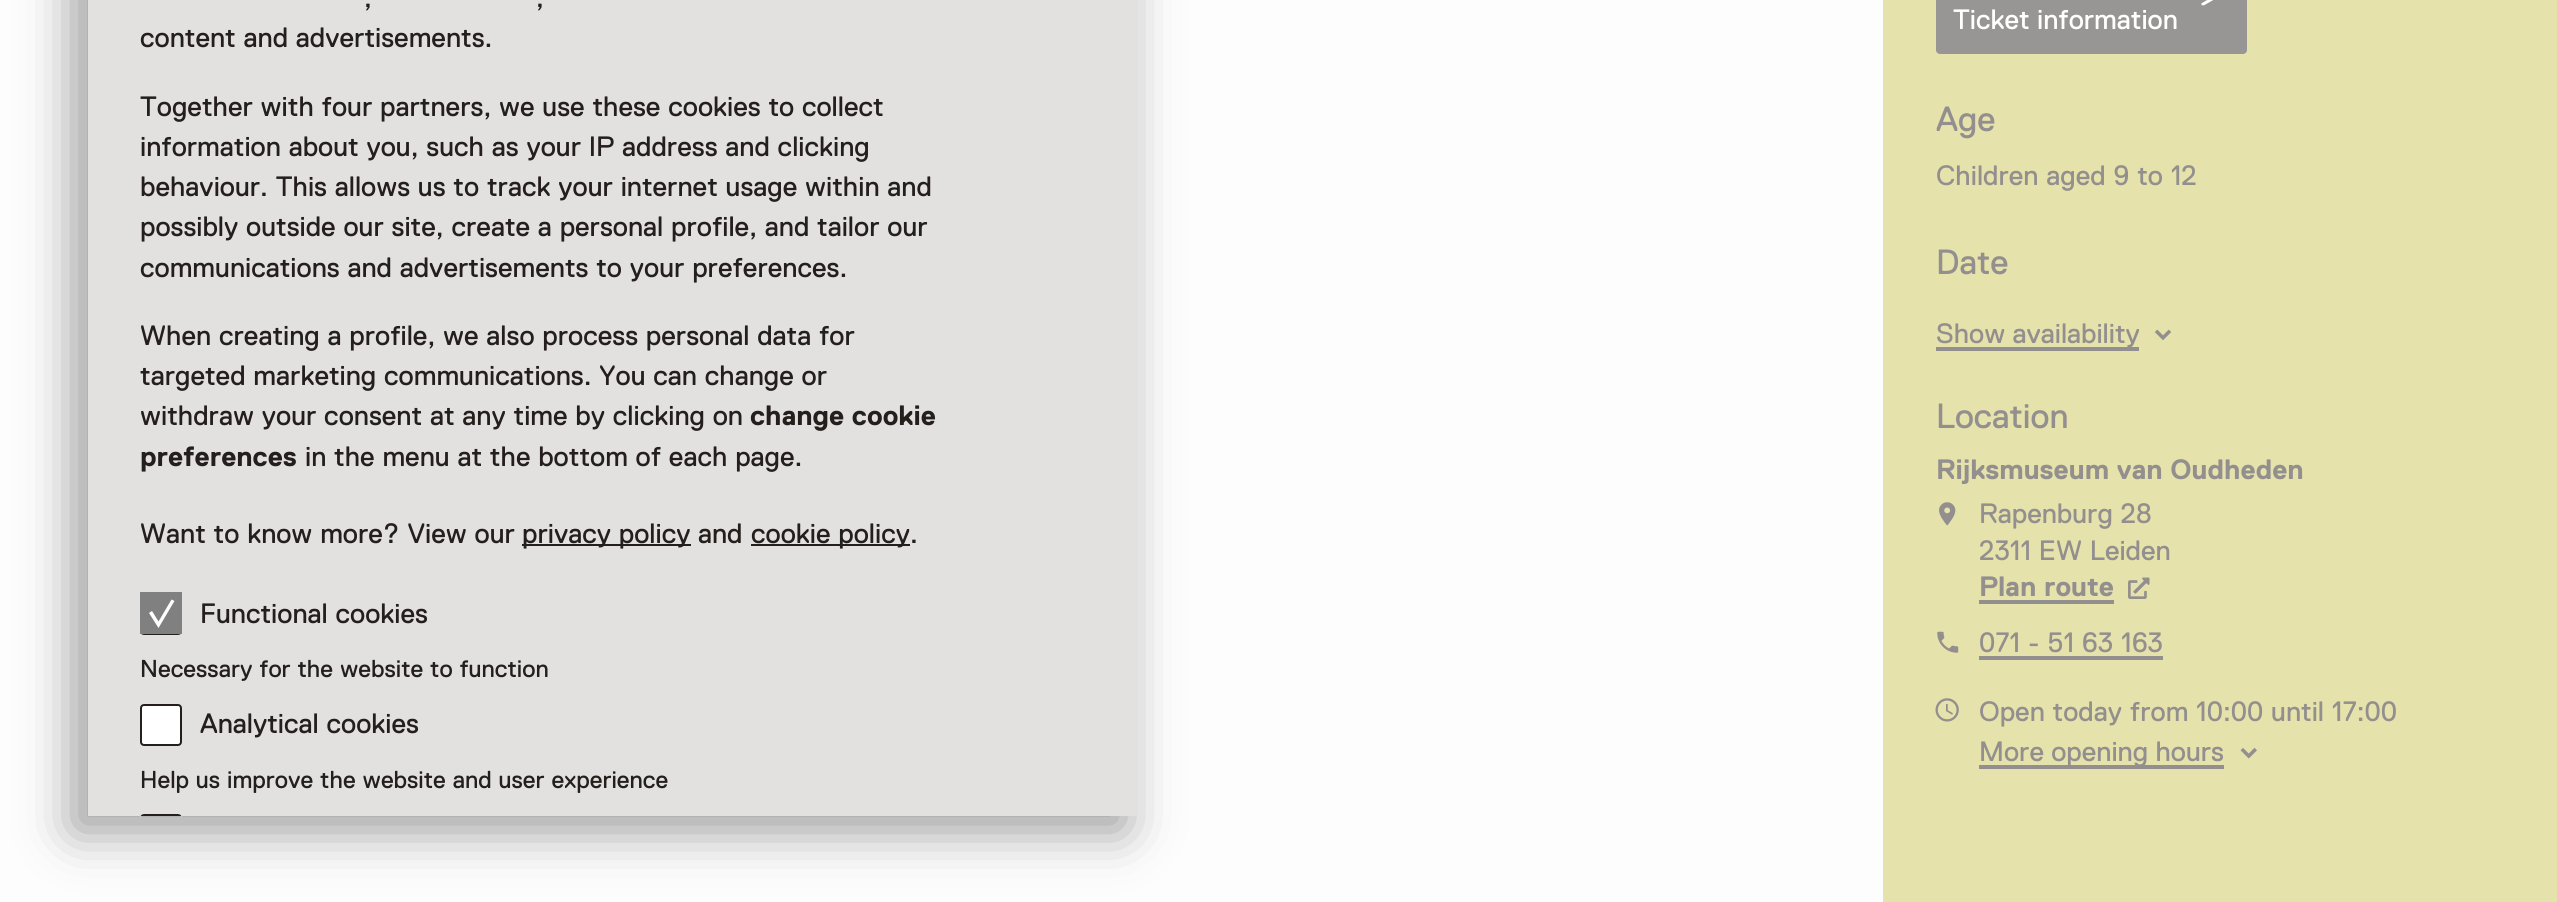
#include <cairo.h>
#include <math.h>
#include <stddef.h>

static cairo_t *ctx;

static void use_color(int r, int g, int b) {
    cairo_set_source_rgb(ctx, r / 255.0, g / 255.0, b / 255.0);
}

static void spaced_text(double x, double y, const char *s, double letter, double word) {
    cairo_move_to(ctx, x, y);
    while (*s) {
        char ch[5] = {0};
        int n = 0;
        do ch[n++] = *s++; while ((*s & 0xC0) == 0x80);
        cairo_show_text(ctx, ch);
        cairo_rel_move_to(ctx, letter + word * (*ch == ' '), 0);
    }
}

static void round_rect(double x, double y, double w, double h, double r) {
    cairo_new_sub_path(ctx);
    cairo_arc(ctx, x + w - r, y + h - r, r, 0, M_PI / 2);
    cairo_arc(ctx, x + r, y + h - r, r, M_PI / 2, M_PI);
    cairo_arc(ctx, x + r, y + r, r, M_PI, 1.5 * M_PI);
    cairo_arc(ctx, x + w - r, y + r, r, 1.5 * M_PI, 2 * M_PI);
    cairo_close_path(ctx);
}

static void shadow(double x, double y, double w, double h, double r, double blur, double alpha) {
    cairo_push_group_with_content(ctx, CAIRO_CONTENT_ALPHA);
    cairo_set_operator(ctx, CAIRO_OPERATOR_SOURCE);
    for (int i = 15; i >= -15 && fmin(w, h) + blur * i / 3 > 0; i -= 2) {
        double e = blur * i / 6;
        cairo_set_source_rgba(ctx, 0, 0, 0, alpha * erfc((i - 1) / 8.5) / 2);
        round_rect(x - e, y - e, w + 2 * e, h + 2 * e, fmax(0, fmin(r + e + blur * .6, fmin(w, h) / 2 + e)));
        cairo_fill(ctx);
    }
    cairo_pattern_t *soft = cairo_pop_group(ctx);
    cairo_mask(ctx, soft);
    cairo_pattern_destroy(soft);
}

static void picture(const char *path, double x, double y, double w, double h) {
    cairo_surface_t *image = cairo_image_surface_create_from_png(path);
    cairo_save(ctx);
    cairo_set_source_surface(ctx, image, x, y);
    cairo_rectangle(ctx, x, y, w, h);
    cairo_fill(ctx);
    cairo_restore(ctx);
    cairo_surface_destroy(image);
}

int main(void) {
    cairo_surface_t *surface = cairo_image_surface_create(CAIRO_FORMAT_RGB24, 2557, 902);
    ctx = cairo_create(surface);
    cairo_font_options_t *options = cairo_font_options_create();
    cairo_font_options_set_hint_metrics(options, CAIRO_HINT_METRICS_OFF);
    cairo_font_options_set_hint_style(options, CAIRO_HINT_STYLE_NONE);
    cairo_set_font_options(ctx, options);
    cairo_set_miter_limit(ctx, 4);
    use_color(253, 253, 253);
    cairo_paint(ctx);
    use_color(0, 0, 0);
    shadow(74, -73, 1050, 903, 0, 26, 0.4);
    use_color(227, 225, 224);
    cairo_rectangle(ctx, 88, 0, 1050, 816);
    cairo_fill(ctx);
    cairo_select_font_face(ctx, "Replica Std", CAIRO_FONT_SLANT_NORMAL, CAIRO_FONT_WEIGHT_NORMAL);
    cairo_set_font_size(ctx, 28);
    use_color(36, 31, 28);
    spaced_text(364, 7, ",", 0, 0.5);
    spaced_text(536, 7, ",", 0, 0.5);
    spaced_text(140, 47, "content and advertisements.", 0, 0.5);
    spaced_text(140, 116, "Together with four partners, we use these cookies to collect", 0, 0.5);
    spaced_text(140, 156, "information about you, such as your IP address and clicking", 0, 0.5);
    spaced_text(140, 196, "behaviour. This allows us to track your internet usage within and", 0, 0.5);
    spaced_text(140, 236, "possibly outside our site, create a personal profile, and tailor our", 0, 0.5);
    spaced_text(140, 277, "communications and advertisements to your preferences.", 0, 0.5);
    spaced_text(140, 345, "When creating a profile, we also process personal data for", 0, 0.5);
    spaced_text(140, 385, "targeted marketing communications. You can change or", 0, 0.5);
    spaced_text(140, 425, "withdraw your consent at any time by clicking on", 0, 0.5);
    cairo_select_font_face(ctx, "Replica Std", CAIRO_FONT_SLANT_NORMAL, CAIRO_FONT_WEIGHT_BOLD);
    spaced_text(750, 425, "change cookie", 0, 0.5);
    cairo_move_to(ctx, 140, 466);
    cairo_show_text(ctx, "preferences");
    cairo_select_font_face(ctx, "Replica Std", CAIRO_FONT_SLANT_NORMAL, CAIRO_FONT_WEIGHT_NORMAL);
    spaced_text(305, 466, "in the menu at the bottom of each page.", 0, 0.5);
    spaced_text(140, 543, "Want to know more? View our", 0, 0.5);
    cairo_rectangle(ctx, 522, 544, 169, 2);
    cairo_fill(ctx);
    spaced_text(522, 543, "privacy policy", 0, 0.5);
    cairo_move_to(ctx, 698, 543);
    cairo_show_text(ctx, "and");
    cairo_rectangle(ctx, 751, 544, 159, 2);
    cairo_fill(ctx);
    spaced_text(751, 543, "cookie policy", 0, 0.5);
    cairo_move_to(ctx, 910, 543);
    cairo_show_text(ctx, ".");
    round_rect(141, 594, 40, 40, 3);
    cairo_stroke(ctx);
    use_color(128, 128, 128);
    cairo_rectangle(ctx, 140, 592, 42, 42);
    cairo_fill(ctx);
    use_color(255, 255, 255);
    cairo_new_path(ctx);
    cairo_move_to(ctx, 158.5, 628);
    cairo_line_to(ctx, 149, 613);
    cairo_line_to(ctx, 152, 611);
    cairo_line_to(ctx, 158.5, 621.5);
    cairo_line_to(ctx, 171.5, 599.5);
    cairo_line_to(ctx, 174.5, 601);
    cairo_close_path(ctx);
    cairo_fill(ctx);
    use_color(36, 31, 28);
    spaced_text(200, 623, "Functional cookies", 0, 0.5);
    cairo_set_font_size(ctx, 24.5);
    spaced_text(140, 677, "Necessary for the website to function", 0, 0.5);
    use_color(255, 255, 255);
    round_rect(141, 705, 40, 40, 3);
    cairo_fill_preserve(ctx);
    use_color(36, 31, 28);
    cairo_stroke(ctx);
    cairo_set_font_size(ctx, 28);
    spaced_text(200, 733, "Analytical cookies", 0, 0.5);
    cairo_set_font_size(ctx, 24.5);
    spaced_text(140, 788, "Help us improve the website and user experience", 0, 0.5);
    use_color(255, 255, 255);
    cairo_new_path(ctx);
    cairo_move_to(ctx, 144, 814);
    cairo_line_to(ctx, 178, 814);
    cairo_curve_to(ctx, 180, 814, 182, 816, 182, 818);
    cairo_line_to(ctx, 182, 816);
    cairo_line_to(ctx, 140, 816);
    cairo_line_to(ctx, 140, 818);
    cairo_curve_to(ctx, 140, 816, 142, 814, 144, 814);
    cairo_close_path(ctx);
    cairo_fill(ctx);
    cairo_save(ctx);
    cairo_rectangle(ctx, 88, 0, 1050, 816);
    cairo_clip(ctx);
    round_rect(141, 815, 40, 40, 3);
    use_color(36, 31, 28);
    cairo_stroke(ctx);
    cairo_restore(ctx);
    use_color(230, 226, 171);
    cairo_rectangle(ctx, 1883, 0, 674, 902);
    cairo_fill(ctx);
    use_color(152, 150, 148);
    round_rect(1936, -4, 311, 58, 4);
    cairo_fill(ctx);
    picture("img1.png", 2201, 0, 13, 6);
    cairo_set_font_size(ctx, 28);
    use_color(255, 255, 255);
    cairo_move_to(ctx, 1953, 29);
    cairo_show_text(ctx, "Ticket information");
    cairo_set_font_size(ctx, 35);
    use_color(146, 143, 142);
    cairo_move_to(ctx, 1936, 131);
    cairo_show_text(ctx, "Age");
    cairo_set_font_size(ctx, 28);
    spaced_text(1936, 185, "Children aged 9 to 12", 0, 0.5);
    cairo_set_font_size(ctx, 35);
    cairo_move_to(ctx, 1936, 274);
    cairo_show_text(ctx, "Date");
    cairo_set_font_size(ctx, 28);
    cairo_move_to(ctx, 1936, 343);
    cairo_show_text(ctx, "Show availability");
    picture("img2.png", 2154, 329, 18, 12);
    cairo_rectangle(ctx, 1936, 347, 203, 4);
    cairo_fill(ctx);
    cairo_set_font_size(ctx, 35);
    cairo_move_to(ctx, 1936, 428);
    cairo_show_text(ctx, "Location");
    cairo_select_font_face(ctx, "Replica Std", CAIRO_FONT_SLANT_NORMAL, CAIRO_FONT_WEIGHT_BOLD);
    cairo_set_font_size(ctx, 28);
    spaced_text(1936, 479, "Rijksmuseum van Oudheden", 0, 0.5);
    picture("img3.png", 1939, 502, 17, 24);
    cairo_select_font_face(ctx, "Replica Std", CAIRO_FONT_SLANT_NORMAL, CAIRO_FONT_WEIGHT_NORMAL);
    spaced_text(1979, 523, "Rapenburg 28", 0, 0.5);
    spaced_text(1979, 560, "2311 EW Leiden", 0, 0.5);
    cairo_select_font_face(ctx, "Replica Std", CAIRO_FONT_SLANT_NORMAL, CAIRO_FONT_WEIGHT_BOLD);
    spaced_text(1979, 596, "Plan route", 0, 0.5);
    picture("img4.png", 2128, 577, 22, 22);
    cairo_rectangle(ctx, 1979, 600, 135, 4);
    cairo_fill(ctx);
    picture("img5.png", 1937, 631, 22, 22);
    cairo_select_font_face(ctx, "Replica Std", CAIRO_FONT_SLANT_NORMAL, CAIRO_FONT_WEIGHT_NORMAL);
    spaced_text(1979, 652, "071 - 51 63 163", 0, 0.5);
    cairo_rectangle(ctx, 1979, 656, 184, 4);
    cairo_fill(ctx);
    picture("img6.png", 1935, 698, 24, 24);
    spaced_text(1979, 721, "Open today from 10:00 until 17:00", 0, 0.5);
    cairo_move_to(ctx, 1979, 761);
    cairo_show_text(ctx, "More opening hours");
    picture("img7.png", 2240, 747, 17, 12);
    cairo_rectangle(ctx, 1979, 765, 245, 4);
    cairo_fill(ctx);
    cairo_surface_write_to_png(surface, "result.png");
    cairo_font_options_destroy(options);
    cairo_destroy(ctx);
    cairo_surface_destroy(surface);
    return 0;
}
